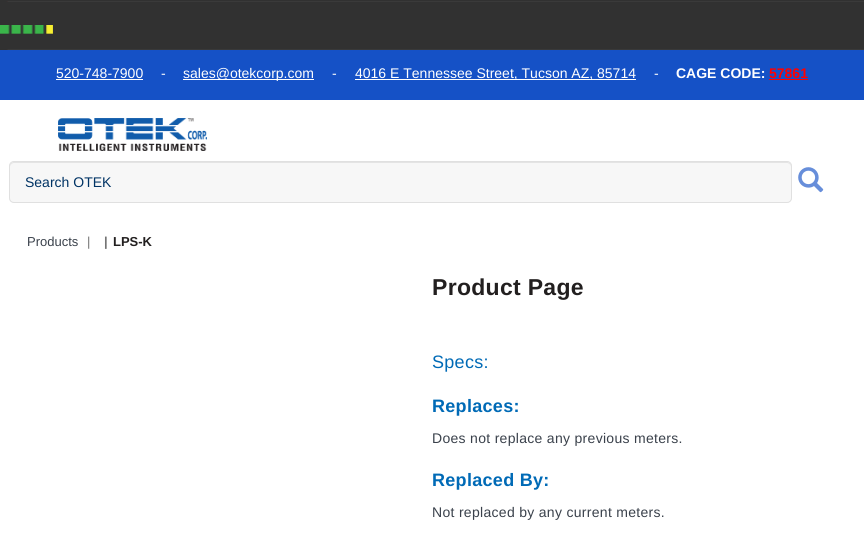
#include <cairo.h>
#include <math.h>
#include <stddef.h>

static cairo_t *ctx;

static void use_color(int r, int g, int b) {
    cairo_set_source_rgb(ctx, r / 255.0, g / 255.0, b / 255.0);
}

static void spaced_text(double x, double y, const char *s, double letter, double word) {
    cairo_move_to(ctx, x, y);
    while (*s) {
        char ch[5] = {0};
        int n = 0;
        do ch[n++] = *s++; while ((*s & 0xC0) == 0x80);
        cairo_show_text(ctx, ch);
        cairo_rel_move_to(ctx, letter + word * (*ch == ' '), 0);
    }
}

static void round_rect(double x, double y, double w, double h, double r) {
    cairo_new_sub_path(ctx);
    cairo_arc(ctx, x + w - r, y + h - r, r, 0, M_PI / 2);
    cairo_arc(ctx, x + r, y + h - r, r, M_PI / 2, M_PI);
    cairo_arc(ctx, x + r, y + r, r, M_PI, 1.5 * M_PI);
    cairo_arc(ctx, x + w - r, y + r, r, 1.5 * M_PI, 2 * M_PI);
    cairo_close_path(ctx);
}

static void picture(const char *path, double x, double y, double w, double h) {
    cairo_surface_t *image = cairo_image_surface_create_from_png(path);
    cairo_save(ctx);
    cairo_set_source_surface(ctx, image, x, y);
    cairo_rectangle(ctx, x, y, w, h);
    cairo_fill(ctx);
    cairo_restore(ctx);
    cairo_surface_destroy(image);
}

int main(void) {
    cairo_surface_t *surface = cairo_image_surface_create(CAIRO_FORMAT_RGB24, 864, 553);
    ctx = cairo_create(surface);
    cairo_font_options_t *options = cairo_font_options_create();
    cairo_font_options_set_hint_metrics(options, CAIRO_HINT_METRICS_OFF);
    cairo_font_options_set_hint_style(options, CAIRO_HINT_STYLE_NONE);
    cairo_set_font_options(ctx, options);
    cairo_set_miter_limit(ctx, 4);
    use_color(255, 255, 255);
    cairo_paint(ctx);
    use_color(49, 49, 49);
    cairo_rectangle(ctx, 0, 0, 864, 1);
    cairo_fill(ctx);
    picture("img1.png", 0, 1, 864, 49);
    use_color(21, 81, 198);
    cairo_rectangle(ctx, 0, 50, 864, 50);
    cairo_fill(ctx);
    cairo_select_font_face(ctx, "Liberation Sans", CAIRO_FONT_SLANT_NORMAL, CAIRO_FONT_WEIGHT_NORMAL);
    cairo_set_font_size(ctx, 14);
    use_color(255, 255, 255);
    cairo_move_to(ctx, 56, 78);
    cairo_show_text(ctx, "520-748-7900");
    cairo_rectangle(ctx, 56, 79, 87, 1);
    cairo_fill(ctx);
    cairo_move_to(ctx, 161, 78);
    cairo_show_text(ctx, "-");
    cairo_rectangle(ctx, 183, 79, 131, 1);
    cairo_fill(ctx);
    cairo_move_to(ctx, 183, 78);
    cairo_show_text(ctx, "sales@otekcorp.com");
    cairo_move_to(ctx, 332, 78);
    cairo_show_text(ctx, "-");
    cairo_rectangle(ctx, 355, 79, 281, 1);
    cairo_fill(ctx);
    cairo_move_to(ctx, 355, 78);
    cairo_show_text(ctx, "4016 E Tennessee Street, Tucson AZ, 85714");
    cairo_move_to(ctx, 654, 78);
    cairo_show_text(ctx, "-");
    cairo_select_font_face(ctx, "Liberation Sans", CAIRO_FONT_SLANT_NORMAL, CAIRO_FONT_WEIGHT_BOLD);
    cairo_move_to(ctx, 676, 78);
    cairo_show_text(ctx, "CAGE CODE:");
    use_color(255, 0, 0);
    cairo_move_to(ctx, 769, 78);
    cairo_show_text(ctx, "57861");
    cairo_rectangle(ctx, 769, 79, 39, 1);
    cairo_fill(ctx);
    picture("img2.png", 58, 118, 149, 33);
    use_color(247, 247, 247);
    round_rect(9, 161, 783, 42, 5);
    cairo_fill(ctx);
    use_color(228, 228, 228);
    cairo_new_path(ctx);
    cairo_move_to(ctx, 14, 163);
    cairo_line_to(ctx, 787, 163);
    cairo_curve_to(ctx, 789, 163, 791, 165, 791, 167);
    cairo_line_to(ctx, 791, 166);
    cairo_curve_to(ctx, 791, 164, 789, 162, 787, 162);
    cairo_line_to(ctx, 14, 162);
    cairo_curve_to(ctx, 12, 162, 10, 164, 10, 166);
    cairo_line_to(ctx, 10, 167);
    cairo_curve_to(ctx, 10, 165, 12, 163, 14, 163);
    cairo_close_path(ctx);
    cairo_fill(ctx);
    round_rect(9.5, 161.5, 782, 41, 4.5);
    use_color(224, 224, 224);
    cairo_set_line_width(ctx, 1);
    cairo_stroke(ctx);
    cairo_select_font_face(ctx, "Liberation Sans", CAIRO_FONT_SLANT_NORMAL, CAIRO_FONT_WEIGHT_NORMAL);
    use_color(0, 51, 100);
    cairo_move_to(ctx, 25, 187);
    cairo_show_text(ctx, "Search OTEK");
    picture("img3.png", 798, 167, 26, 26);
    cairo_set_font_size(ctx, 13);
    use_color(58, 65, 75);
    cairo_move_to(ctx, 27, 246);
    cairo_show_text(ctx, "Products");
    use_color(116, 116, 116);
    cairo_move_to(ctx, 87, 246);
    cairo_show_text(ctx, "|");
    cairo_select_font_face(ctx, "Liberation Sans", CAIRO_FONT_SLANT_NORMAL, CAIRO_FONT_WEIGHT_BOLD);
    cairo_move_to(ctx, 104, 246);
    cairo_show_text(ctx, "|");
    use_color(34, 31, 31);
    cairo_move_to(ctx, 113, 246);
    cairo_show_text(ctx, "LPS-K");
    cairo_set_font_size(ctx, 23);
    spaced_text(432, 295, "Product Page", 0.3, 0);
    cairo_select_font_face(ctx, "Liberation Sans", CAIRO_FONT_SLANT_NORMAL, CAIRO_FONT_WEIGHT_NORMAL);
    cairo_set_font_size(ctx, 18);
    use_color(0, 106, 182);
    spaced_text(432, 368, "Specs:", 0.3, 0);
    cairo_select_font_face(ctx, "Liberation Sans", CAIRO_FONT_SLANT_NORMAL, CAIRO_FONT_WEIGHT_BOLD);
    spaced_text(432, 412, "Replaces:", 0.3, 0);
    cairo_select_font_face(ctx, "Liberation Sans", CAIRO_FONT_SLANT_NORMAL, CAIRO_FONT_WEIGHT_NORMAL);
    cairo_set_font_size(ctx, 14);
    use_color(58, 65, 75);
    spaced_text(432, 443, "Does not replace any previous meters.", 0.3, 0);
    cairo_select_font_face(ctx, "Liberation Sans", CAIRO_FONT_SLANT_NORMAL, CAIRO_FONT_WEIGHT_BOLD);
    cairo_set_font_size(ctx, 18);
    use_color(0, 106, 182);
    spaced_text(432, 486, "Replaced By:", 0.3, 0);
    cairo_select_font_face(ctx, "Liberation Sans", CAIRO_FONT_SLANT_NORMAL, CAIRO_FONT_WEIGHT_NORMAL);
    cairo_set_font_size(ctx, 14);
    use_color(58, 65, 75);
    spaced_text(432, 517, "Not replaced by any current meters.", 0.3, 0);
    cairo_surface_write_to_png(surface, "result.png");
    cairo_font_options_destroy(options);
    cairo_destroy(ctx);
    cairo_surface_destroy(surface);
    return 0;
}
